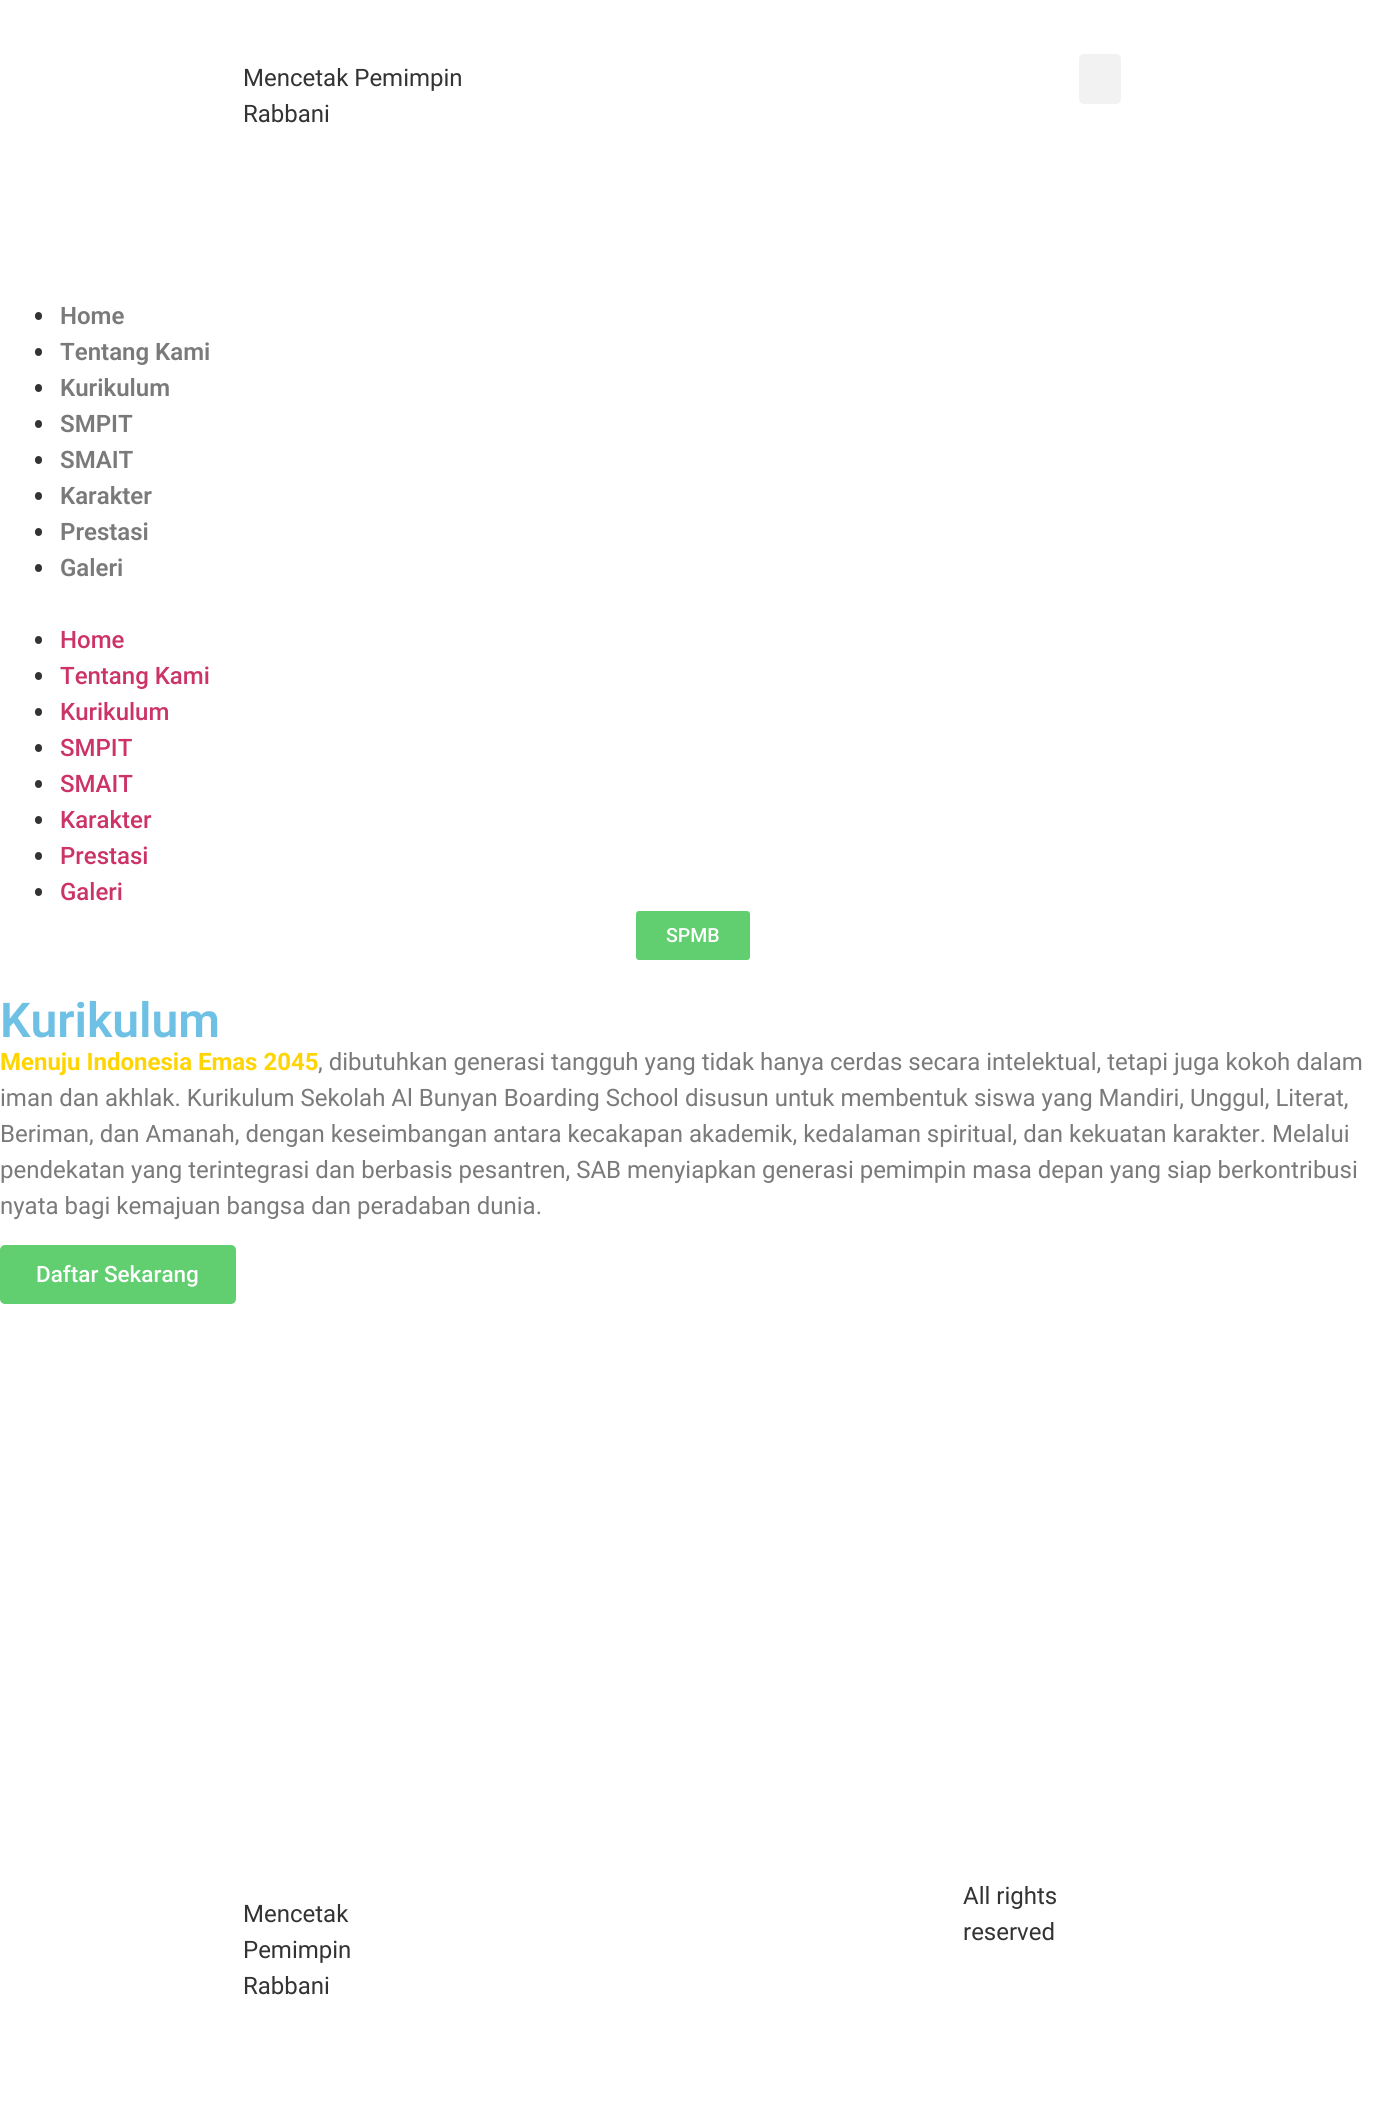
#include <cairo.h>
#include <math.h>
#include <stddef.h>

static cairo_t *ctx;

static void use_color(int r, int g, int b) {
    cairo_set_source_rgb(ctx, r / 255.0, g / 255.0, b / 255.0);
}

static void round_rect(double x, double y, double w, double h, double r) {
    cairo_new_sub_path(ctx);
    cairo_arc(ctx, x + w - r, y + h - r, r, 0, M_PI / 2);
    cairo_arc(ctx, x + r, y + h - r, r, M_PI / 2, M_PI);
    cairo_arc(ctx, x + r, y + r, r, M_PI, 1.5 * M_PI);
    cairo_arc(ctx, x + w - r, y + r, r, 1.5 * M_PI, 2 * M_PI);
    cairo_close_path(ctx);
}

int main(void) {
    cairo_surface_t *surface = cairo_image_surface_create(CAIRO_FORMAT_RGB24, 1386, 2124);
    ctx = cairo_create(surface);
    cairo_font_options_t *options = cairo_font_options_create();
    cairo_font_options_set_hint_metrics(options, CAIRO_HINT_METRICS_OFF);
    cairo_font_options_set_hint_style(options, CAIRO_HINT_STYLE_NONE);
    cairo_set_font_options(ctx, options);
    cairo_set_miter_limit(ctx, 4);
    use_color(255, 255, 255);
    cairo_paint(ctx);
    cairo_select_font_face(ctx, "Roboto", CAIRO_FONT_SLANT_NORMAL, CAIRO_FONT_WEIGHT_NORMAL);
    cairo_set_font_size(ctx, 24);
    use_color(51, 51, 51);
    cairo_move_to(ctx, 243, 86);
    cairo_show_text(ctx, "Mencetak Pemimpin");
    cairo_move_to(ctx, 243, 122);
    cairo_show_text(ctx, "Rabbani");
    use_color(242, 242, 242);
    round_rect(1079, 54, 42, 50, 5);
    cairo_fill(ctx);
    use_color(51, 51, 51);
    round_rect(35, 312, 7, 8, 3.5);
    cairo_fill(ctx);
    cairo_select_font_face(ctx, "Roboto SemiBold", CAIRO_FONT_SLANT_NORMAL, CAIRO_FONT_WEIGHT_NORMAL);
    use_color(122, 122, 122);
    cairo_move_to(ctx, 60, 324);
    cairo_show_text(ctx, "Home");
    use_color(51, 51, 51);
    round_rect(35, 348, 7, 8, 3.5);
    cairo_fill(ctx);
    use_color(122, 122, 122);
    cairo_move_to(ctx, 60, 360);
    cairo_show_text(ctx, "Tentang Kami");
    use_color(51, 51, 51);
    round_rect(35, 384, 7, 8, 3.5);
    cairo_fill(ctx);
    use_color(122, 122, 122);
    cairo_move_to(ctx, 60, 396);
    cairo_show_text(ctx, "Kurikulum");
    use_color(51, 51, 51);
    round_rect(35, 420, 7, 8, 3.5);
    cairo_fill(ctx);
    use_color(122, 122, 122);
    cairo_move_to(ctx, 60, 432);
    cairo_show_text(ctx, "SMPIT");
    use_color(51, 51, 51);
    round_rect(35, 456, 7, 8, 3.5);
    cairo_fill(ctx);
    use_color(122, 122, 122);
    cairo_move_to(ctx, 60, 468);
    cairo_show_text(ctx, "SMAIT");
    use_color(51, 51, 51);
    round_rect(35, 492, 7, 8, 3.5);
    cairo_fill(ctx);
    use_color(122, 122, 122);
    cairo_move_to(ctx, 60, 504);
    cairo_show_text(ctx, "Karakter");
    use_color(51, 51, 51);
    round_rect(35, 528, 7, 8, 3.5);
    cairo_fill(ctx);
    use_color(122, 122, 122);
    cairo_move_to(ctx, 60, 540);
    cairo_show_text(ctx, "Prestasi");
    use_color(51, 51, 51);
    round_rect(35, 564, 7, 8, 3.5);
    cairo_fill(ctx);
    use_color(122, 122, 122);
    cairo_move_to(ctx, 60, 576);
    cairo_show_text(ctx, "Galeri");
    use_color(51, 51, 51);
    round_rect(35, 636, 7, 8, 3.5);
    cairo_fill(ctx);
    cairo_select_font_face(ctx, "Roboto Medium", CAIRO_FONT_SLANT_NORMAL, CAIRO_FONT_WEIGHT_NORMAL);
    use_color(204, 51, 102);
    cairo_move_to(ctx, 60, 648);
    cairo_show_text(ctx, "Home");
    use_color(51, 51, 51);
    round_rect(35, 672, 7, 8, 3.5);
    cairo_fill(ctx);
    use_color(204, 51, 102);
    cairo_move_to(ctx, 60, 684);
    cairo_show_text(ctx, "Tentang Kami");
    use_color(51, 51, 51);
    round_rect(35, 708, 7, 8, 3.5);
    cairo_fill(ctx);
    use_color(204, 51, 102);
    cairo_move_to(ctx, 60, 720);
    cairo_show_text(ctx, "Kurikulum");
    use_color(51, 51, 51);
    round_rect(35, 744, 7, 8, 3.5);
    cairo_fill(ctx);
    use_color(204, 51, 102);
    cairo_move_to(ctx, 60, 756);
    cairo_show_text(ctx, "SMPIT");
    use_color(51, 51, 51);
    round_rect(35, 780, 7, 8, 3.5);
    cairo_fill(ctx);
    use_color(204, 51, 102);
    cairo_move_to(ctx, 60, 792);
    cairo_show_text(ctx, "SMAIT");
    use_color(51, 51, 51);
    round_rect(35, 816, 7, 8, 3.5);
    cairo_fill(ctx);
    use_color(204, 51, 102);
    cairo_move_to(ctx, 60, 828);
    cairo_show_text(ctx, "Karakter");
    use_color(51, 51, 51);
    round_rect(35, 852, 7, 8, 3.5);
    cairo_fill(ctx);
    use_color(204, 51, 102);
    cairo_move_to(ctx, 60, 864);
    cairo_show_text(ctx, "Prestasi");
    use_color(51, 51, 51);
    round_rect(35, 888, 7, 8, 3.5);
    cairo_fill(ctx);
    use_color(204, 51, 102);
    cairo_move_to(ctx, 60, 900);
    cairo_show_text(ctx, "Galeri");
    use_color(97, 206, 112);
    round_rect(636, 911, 114, 49, 3);
    cairo_fill(ctx);
    cairo_set_font_size(ctx, 19.5);
    use_color(255, 255, 255);
    cairo_move_to(ctx, 666, 942);
    cairo_show_text(ctx, "SPMB");
    cairo_select_font_face(ctx, "Roboto SemiBold", CAIRO_FONT_SLANT_NORMAL, CAIRO_FONT_WEIGHT_NORMAL);
    cairo_set_font_size(ctx, 48);
    use_color(110, 193, 228);
    cairo_move_to(ctx, 0, 1037);
    cairo_show_text(ctx, "Kurikulum");
    cairo_select_font_face(ctx, "Roboto", CAIRO_FONT_SLANT_NORMAL, CAIRO_FONT_WEIGHT_BOLD);
    cairo_set_font_size(ctx, 24);
    use_color(254, 213, 1);
    cairo_move_to(ctx, 0, 1070);
    cairo_show_text(ctx, "Menuju Indonesia Emas 2045");
    cairo_select_font_face(ctx, "Roboto", CAIRO_FONT_SLANT_NORMAL, CAIRO_FONT_WEIGHT_NORMAL);
    use_color(122, 122, 122);
    cairo_move_to(ctx, 318, 1070);
    cairo_show_text(ctx, ", dibutuhkan generasi tangguh yang tidak hanya cerdas secara intelektual, tetapi juga kokoh dalam");
    cairo_move_to(ctx, 0, 1106);
    cairo_show_text(ctx, "iman dan akhlak. Kurikulum Sekolah Al Bunyan Boarding School disusun untuk membentuk siswa yang Mandiri, Unggul, Literat,");
    cairo_move_to(ctx, 0, 1142);
    cairo_show_text(ctx, "Beriman, dan Amanah, dengan keseimbangan antara kecakapan akademik, kedalaman spiritual, dan kekuatan karakter. Melalui");
    cairo_move_to(ctx, 0, 1178);
    cairo_show_text(ctx, "pendekatan yang terintegrasi dan berbasis pesantren, SAB menyiapkan generasi pemimpin masa depan yang siap berkontribusi");
    cairo_move_to(ctx, 0, 1214);
    cairo_show_text(ctx, "nyata bagi kemajuan bangsa dan peradaban dunia.");
    use_color(97, 206, 112);
    round_rect(0, 1245, 236, 59, 5);
    cairo_fill(ctx);
    cairo_select_font_face(ctx, "Roboto Medium", CAIRO_FONT_SLANT_NORMAL, CAIRO_FONT_WEIGHT_NORMAL);
    cairo_set_font_size(ctx, 22.5);
    use_color(255, 255, 255);
    cairo_move_to(ctx, 36, 1282);
    cairo_show_text(ctx, "Daftar Sekarang");
    cairo_select_font_face(ctx, "Roboto", CAIRO_FONT_SLANT_NORMAL, CAIRO_FONT_WEIGHT_NORMAL);
    cairo_set_font_size(ctx, 24);
    use_color(51, 51, 51);
    cairo_move_to(ctx, 243, 1922);
    cairo_show_text(ctx, "Mencetak");
    cairo_move_to(ctx, 243, 1958);
    cairo_show_text(ctx, "Pemimpin");
    cairo_move_to(ctx, 243, 1994);
    cairo_show_text(ctx, "Rabbani");
    cairo_move_to(ctx, 963, 1904);
    cairo_show_text(ctx, "All rights");
    cairo_move_to(ctx, 963, 1940);
    cairo_show_text(ctx, "reserved");
    cairo_surface_write_to_png(surface, "result.png");
    cairo_font_options_destroy(options);
    cairo_destroy(ctx);
    cairo_surface_destroy(surface);
    return 0;
}
